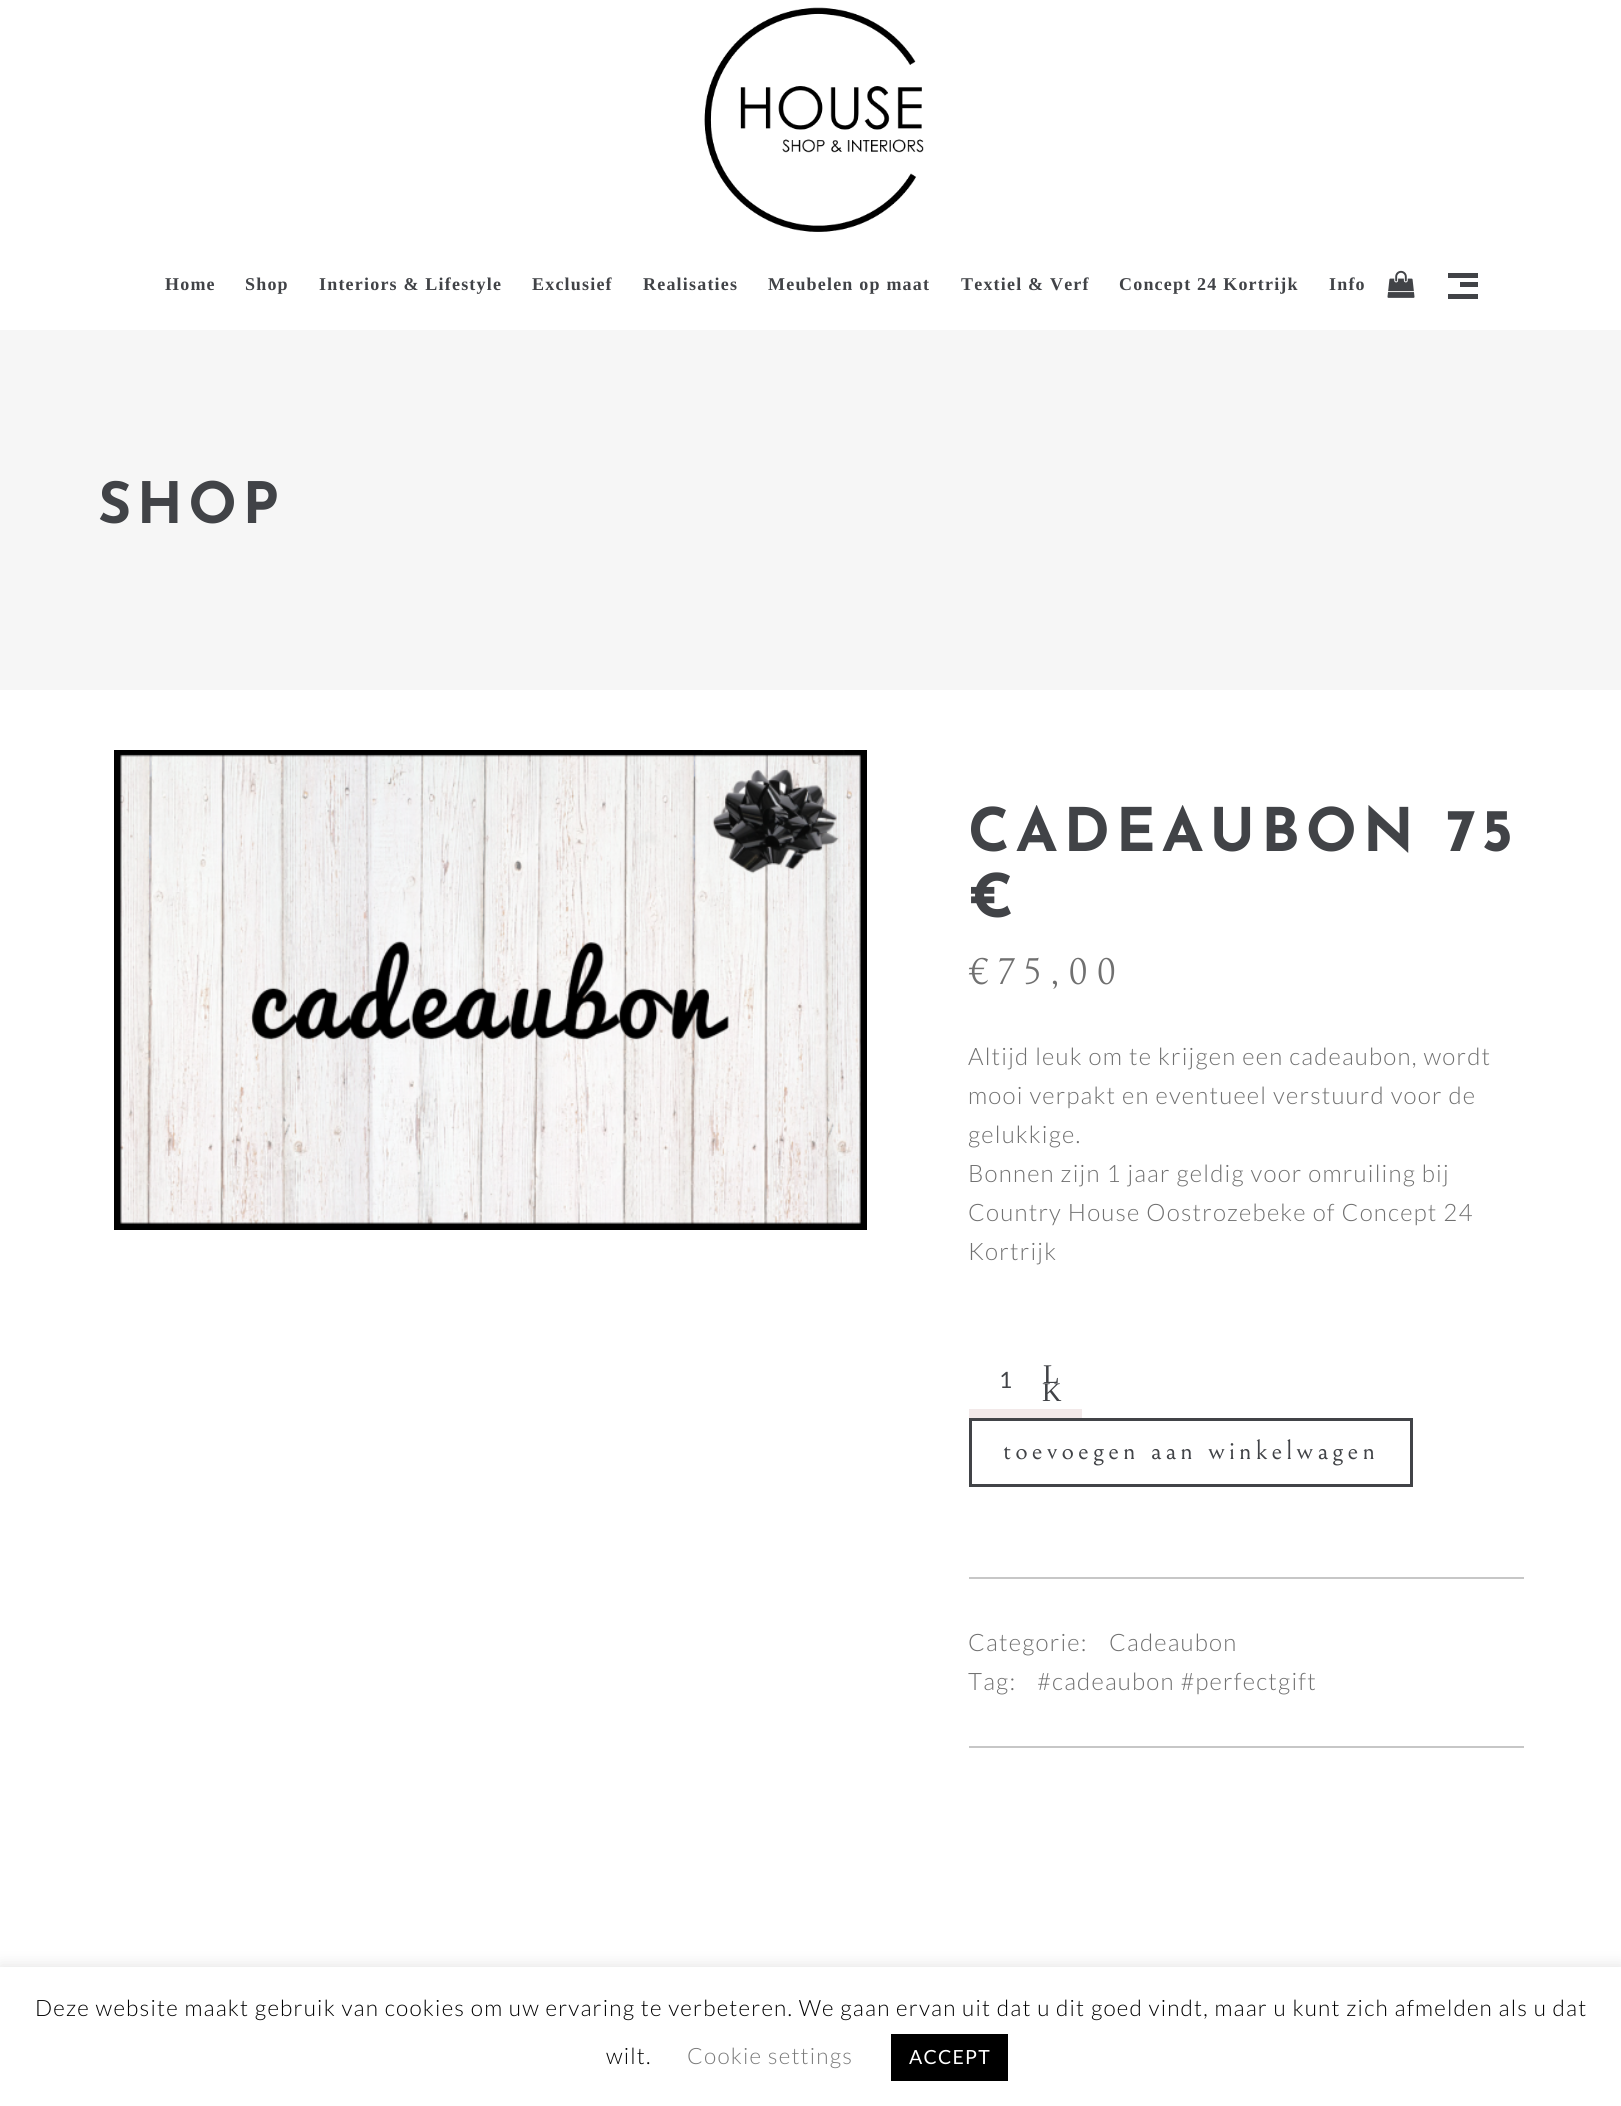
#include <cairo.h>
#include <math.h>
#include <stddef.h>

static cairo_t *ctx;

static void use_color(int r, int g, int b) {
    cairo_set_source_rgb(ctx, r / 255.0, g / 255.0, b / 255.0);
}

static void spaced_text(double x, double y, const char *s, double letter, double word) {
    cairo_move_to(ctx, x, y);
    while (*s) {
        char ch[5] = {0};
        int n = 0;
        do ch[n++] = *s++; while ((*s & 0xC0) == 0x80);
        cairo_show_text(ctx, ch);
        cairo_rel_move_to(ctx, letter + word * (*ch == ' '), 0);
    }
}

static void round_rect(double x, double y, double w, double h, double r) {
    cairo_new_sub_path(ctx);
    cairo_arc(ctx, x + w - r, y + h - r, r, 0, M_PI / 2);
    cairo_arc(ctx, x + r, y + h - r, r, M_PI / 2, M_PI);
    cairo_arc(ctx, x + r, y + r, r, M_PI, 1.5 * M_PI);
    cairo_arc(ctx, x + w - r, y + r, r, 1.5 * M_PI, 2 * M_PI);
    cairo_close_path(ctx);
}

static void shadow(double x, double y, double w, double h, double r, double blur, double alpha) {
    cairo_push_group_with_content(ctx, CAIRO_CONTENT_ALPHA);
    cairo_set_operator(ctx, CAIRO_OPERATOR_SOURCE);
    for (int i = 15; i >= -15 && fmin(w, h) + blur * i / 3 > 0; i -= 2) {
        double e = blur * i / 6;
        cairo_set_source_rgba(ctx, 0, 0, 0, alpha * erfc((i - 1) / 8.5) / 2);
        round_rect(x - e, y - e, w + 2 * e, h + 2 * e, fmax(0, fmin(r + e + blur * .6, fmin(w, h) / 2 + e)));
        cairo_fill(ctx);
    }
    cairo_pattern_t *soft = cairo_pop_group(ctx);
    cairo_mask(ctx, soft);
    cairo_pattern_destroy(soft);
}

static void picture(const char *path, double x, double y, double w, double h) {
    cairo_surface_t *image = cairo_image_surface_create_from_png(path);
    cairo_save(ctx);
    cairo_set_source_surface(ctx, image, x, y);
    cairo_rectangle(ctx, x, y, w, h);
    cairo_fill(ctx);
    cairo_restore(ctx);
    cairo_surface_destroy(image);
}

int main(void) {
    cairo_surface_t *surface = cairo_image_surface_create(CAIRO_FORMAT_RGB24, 1621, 2106);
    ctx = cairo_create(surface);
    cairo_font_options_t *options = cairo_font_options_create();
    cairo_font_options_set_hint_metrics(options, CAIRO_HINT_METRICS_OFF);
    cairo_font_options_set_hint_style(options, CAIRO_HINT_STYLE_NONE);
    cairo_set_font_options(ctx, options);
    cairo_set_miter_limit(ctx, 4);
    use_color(255, 255, 255);
    cairo_paint(ctx);
    picture("img1.png", 704, 7, 220, 225);
    cairo_select_font_face(ctx, "Liberation Serif", CAIRO_FONT_SLANT_NORMAL, CAIRO_FONT_WEIGHT_BOLD);
    cairo_set_font_size(ctx, 18);
    use_color(65, 67, 71);
    spaced_text(165, 290, "Home", 1.2, 0);
    spaced_text(245, 290, "Shop", 1.2, 0);
    spaced_text(319, 290, "Interiors & Lifestyle", 1.2, 0);
    spaced_text(532, 290, "Exclusief", 1.2, 0);
    spaced_text(643, 290, "Realisaties", 1.2, 0);
    spaced_text(768, 290, "Meubelen op maat", 1.2, 0);
    spaced_text(961, 290, "Textiel & Verf", 1.2, 0);
    spaced_text(1119, 290, "Concept 24 Kortrijk", 1.2, 0);
    spaced_text(1329, 290, "Info", 1.2, 0);
    picture("img2.png", 1387, 270, 28, 28);
    cairo_rectangle(ctx, 1448, 273, 30, 5);
    cairo_fill(ctx);
    cairo_rectangle(ctx, 1460, 282, 18, 5);
    cairo_fill(ctx);
    cairo_rectangle(ctx, 1448, 294, 30, 5);
    cairo_fill(ctx);
    use_color(246, 246, 246);
    cairo_rectangle(ctx, 0, 330, 1621, 360);
    cairo_fill(ctx);
    cairo_select_font_face(ctx, "Josefin Sans", CAIRO_FONT_SLANT_NORMAL, CAIRO_FONT_WEIGHT_BOLD);
    cairo_set_font_size(ctx, 57);
    use_color(65, 67, 71);
    spaced_text(98, 523, "SHOP", 5.5, 0);
    picture("img3.png", 114, 750, 753, 480);
    cairo_set_font_size(ctx, 60);
    spaced_text(968, 851, "CADEAUBON 75", 6, 0);
    spaced_text(968, 917, "€", 6, 0);
    cairo_select_font_face(ctx, "Bellefair", CAIRO_FONT_SLANT_NORMAL, CAIRO_FONT_WEIGHT_NORMAL);
    cairo_set_font_size(ctx, 37.5);
    use_color(112, 112, 112);
    spaced_text(968, 984, "€75,00", 9, 0);
    cairo_select_font_face(ctx, "Lato Light", CAIRO_FONT_SLANT_NORMAL, CAIRO_FONT_WEIGHT_NORMAL);
    cairo_set_font_size(ctx, 24);
    spaced_text(968, 1065, "Altijd leuk om te krijgen een cadeaubon, wordt", 1.2, 0);
    spaced_text(968, 1104, "mooi verpakt en eventueel verstuurd voor de", 1.2, 0);
    spaced_text(968, 1143, "gelukkige.", 1.2, 0);
    spaced_text(968, 1182, "Bonnen zijn 1 jaar geldig voor omruiling bij", 1.2, 0);
    spaced_text(968, 1221, "Country House Oostrozebeke of Concept 24", 1.2, 0);
    spaced_text(968, 1260, "Kortrijk", 1.2, 0);
    cairo_select_font_face(ctx, "Lato", CAIRO_FONT_SLANT_NORMAL, CAIRO_FONT_WEIGHT_NORMAL);
    cairo_set_font_size(ctx, 22.5);
    use_color(65, 67, 71);
    cairo_move_to(ctx, 999, 1388);
    cairo_show_text(ctx, "1");
    cairo_select_font_face(ctx, "Liberation Serif", CAIRO_FONT_SLANT_NORMAL, CAIRO_FONT_WEIGHT_NORMAL);
    cairo_set_font_size(ctx, 27);
    spaced_text(1043, 1383, "L", 1.2, 0);
    use_color(242, 233, 233);
    cairo_rectangle(ctx, 969, 1409, 113, 9);
    cairo_fill(ctx);
    use_color(65, 67, 71);
    spaced_text(1042, 1401, "K", 1.2, 0);
    cairo_rectangle(ctx, 970.5, 1419.5, 441, 66);
    cairo_set_line_width(ctx, 3);
    cairo_stroke(ctx);
    cairo_select_font_face(ctx, "Bellefair", CAIRO_FONT_SLANT_NORMAL, CAIRO_FONT_WEIGHT_NORMAL);
    spaced_text(1003, 1459, "toevoegen aan winkelwagen", 4.05, 0);
    use_color(199, 199, 199);
    cairo_rectangle(ctx, 969, 1577, 555, 2);
    cairo_fill(ctx);
    cairo_rectangle(ctx, 969, 1746, 555, 2);
    cairo_fill(ctx);
    cairo_select_font_face(ctx, "Lato Light", CAIRO_FONT_SLANT_NORMAL, CAIRO_FONT_WEIGHT_NORMAL);
    cairo_set_font_size(ctx, 24);
    use_color(112, 112, 112);
    spaced_text(968, 1651, "Categorie:", 1.2, 0);
    spaced_text(1109, 1651, "Cadeaubon", 1.2, 0);
    spaced_text(968, 1690, "Tag:", 1.2, 0);
    spaced_text(1037, 1690, "#cadeaubon #perfectgift", 1.2, 0);
    use_color(172, 171, 171);
    shadow(0, 1965, 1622, 140, 0, 7.5, 0.3);
    use_color(255, 255, 255);
    cairo_rectangle(ctx, 0, 1967, 1621, 139);
    cairo_fill(ctx);
    cairo_set_font_size(ctx, 22.5);
    use_color(0, 0, 0);
    spaced_text(35, 2016, "Deze website maakt gebruik van cookies om uw ervaring te verbeteren. We gaan ervan uit dat u dit goed vindt, maar u kunt zich afmelden als u dat", 1.2, 0);
    spaced_text(606, 2064, "wilt.", 1.2, 0);
    use_color(122, 122, 122);
    spaced_text(687, 2064, "Cookie settings", 1.2, 0);
    use_color(0, 0, 0);
    cairo_rectangle(ctx, 891, 2034, 117, 47);
    cairo_fill(ctx);
    cairo_select_font_face(ctx, "Lato", CAIRO_FONT_SLANT_NORMAL, CAIRO_FONT_WEIGHT_NORMAL);
    cairo_set_font_size(ctx, 19.5);
    use_color(255, 255, 255);
    spaced_text(909, 2064, "ACCEPT", 1.2, 0);
    cairo_surface_write_to_png(surface, "result.png");
    cairo_font_options_destroy(options);
    cairo_destroy(ctx);
    cairo_surface_destroy(surface);
    return 0;
}
